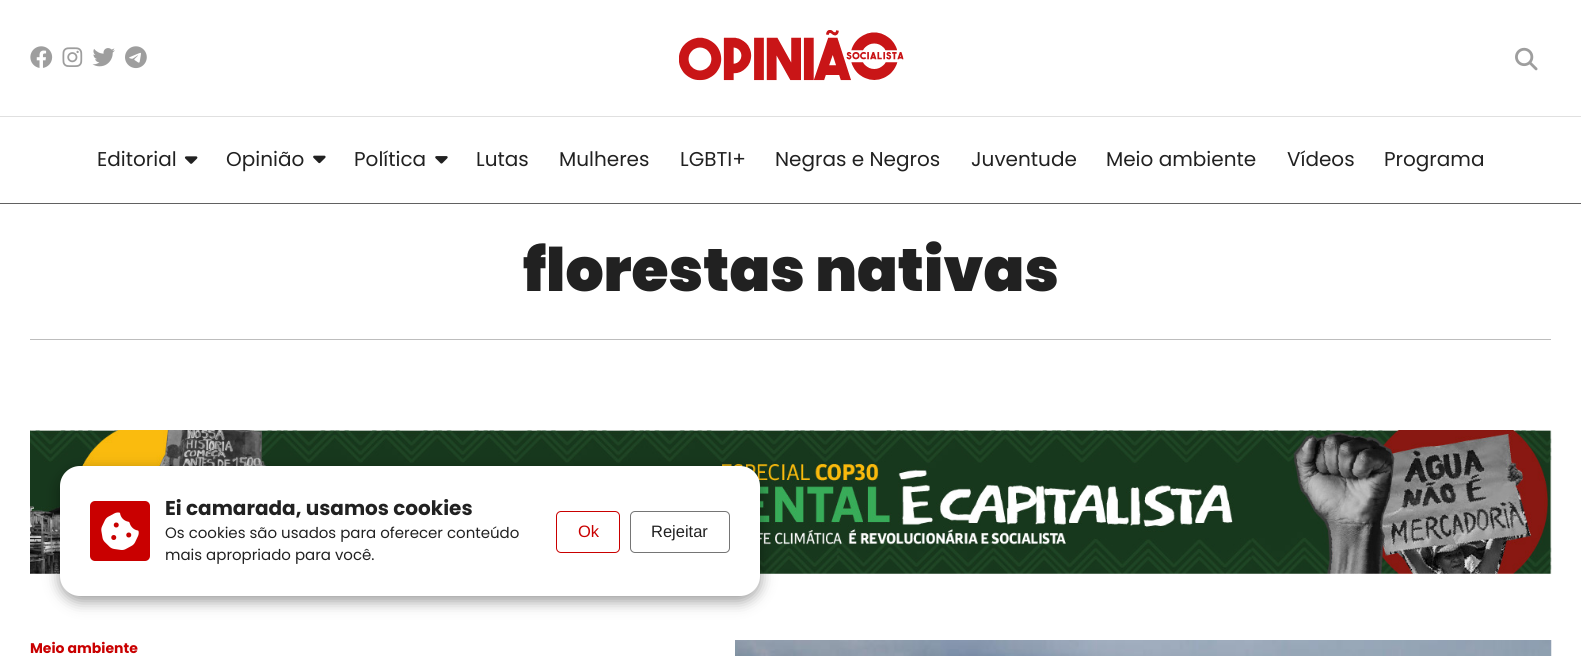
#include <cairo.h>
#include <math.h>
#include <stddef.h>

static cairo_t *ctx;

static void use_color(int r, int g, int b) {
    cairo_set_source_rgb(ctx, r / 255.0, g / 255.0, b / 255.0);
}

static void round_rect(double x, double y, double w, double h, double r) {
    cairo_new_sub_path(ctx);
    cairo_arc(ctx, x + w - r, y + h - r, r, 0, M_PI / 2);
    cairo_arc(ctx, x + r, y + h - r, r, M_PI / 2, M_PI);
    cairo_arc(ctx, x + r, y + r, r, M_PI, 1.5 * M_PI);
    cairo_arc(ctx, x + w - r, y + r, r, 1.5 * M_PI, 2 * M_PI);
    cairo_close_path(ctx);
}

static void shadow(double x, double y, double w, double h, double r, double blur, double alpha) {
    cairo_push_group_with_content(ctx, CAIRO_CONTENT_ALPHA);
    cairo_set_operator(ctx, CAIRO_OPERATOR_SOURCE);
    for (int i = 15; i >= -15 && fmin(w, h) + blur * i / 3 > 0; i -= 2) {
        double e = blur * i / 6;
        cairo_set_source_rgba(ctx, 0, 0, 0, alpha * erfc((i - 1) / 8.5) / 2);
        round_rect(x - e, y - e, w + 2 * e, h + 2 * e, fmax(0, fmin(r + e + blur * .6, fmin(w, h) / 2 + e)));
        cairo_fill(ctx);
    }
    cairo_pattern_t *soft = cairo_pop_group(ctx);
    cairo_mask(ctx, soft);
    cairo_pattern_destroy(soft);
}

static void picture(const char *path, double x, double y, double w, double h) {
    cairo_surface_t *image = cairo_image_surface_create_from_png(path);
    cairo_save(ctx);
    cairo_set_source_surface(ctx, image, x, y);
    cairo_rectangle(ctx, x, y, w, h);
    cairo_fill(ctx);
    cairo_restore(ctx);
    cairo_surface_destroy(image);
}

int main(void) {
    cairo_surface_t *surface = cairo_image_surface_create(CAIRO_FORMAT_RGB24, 1581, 656);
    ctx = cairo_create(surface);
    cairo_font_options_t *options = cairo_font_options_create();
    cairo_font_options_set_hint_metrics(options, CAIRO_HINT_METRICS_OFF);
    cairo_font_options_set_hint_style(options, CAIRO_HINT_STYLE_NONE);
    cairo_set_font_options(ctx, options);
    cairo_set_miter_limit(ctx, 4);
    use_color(255, 255, 255);
    cairo_paint(ctx);
    use_color(224, 224, 224);
    cairo_rectangle(ctx, 0, 116, 1581, 1);
    cairo_fill(ctx);
    picture("img1.png", 30, 46, 23, 22);
    picture("img2.png", 62, 47, 21, 20);
    picture("img3.png", 92, 48, 23, 19);
    picture("img4.png", 125, 46, 22, 23);
    picture("img5.png", 679, 30, 225, 51);
    picture("img6.png", 1515, 47, 23, 24);
    use_color(97, 97, 97);
    cairo_rectangle(ctx, 0, 203, 1581, 1);
    cairo_fill(ctx);
    cairo_select_font_face(ctx, "Poppins", CAIRO_FONT_SLANT_NORMAL, CAIRO_FONT_WEIGHT_NORMAL);
    cairo_set_font_size(ctx, 20);
    use_color(33, 33, 33);
    cairo_move_to(ctx, 97, 166);
    cairo_show_text(ctx, "Editorial");
    picture("img7.png", 184, 156, 14, 8);
    cairo_move_to(ctx, 226, 166);
    cairo_show_text(ctx, "Opinião");
    picture("img8.png", 313, 155, 13, 9);
    cairo_move_to(ctx, 354, 166);
    cairo_show_text(ctx, "Política");
    picture("img9.png", 435, 156, 13, 8);
    cairo_move_to(ctx, 476, 166);
    cairo_show_text(ctx, "Lutas");
    cairo_move_to(ctx, 559, 166);
    cairo_show_text(ctx, "Mulheres");
    cairo_move_to(ctx, 680, 166);
    cairo_show_text(ctx, "LGBTI+");
    cairo_move_to(ctx, 775, 166);
    cairo_show_text(ctx, "Negras e Negros");
    cairo_move_to(ctx, 971, 166);
    cairo_show_text(ctx, "Juventude");
    cairo_move_to(ctx, 1106, 166);
    cairo_show_text(ctx, "Meio ambiente");
    cairo_move_to(ctx, 1287, 166);
    cairo_show_text(ctx, "Vídeos");
    cairo_move_to(ctx, 1384, 166);
    cairo_show_text(ctx, "Programa");
    use_color(189, 189, 189);
    cairo_rectangle(ctx, 30, 339, 1521, 1);
    cairo_fill(ctx);
    cairo_select_font_face(ctx, "Poppins Black", CAIRO_FONT_SLANT_NORMAL, CAIRO_FONT_WEIGHT_NORMAL);
    cairo_set_font_size(ctx, 60);
    use_color(33, 33, 33);
    cairo_move_to(ctx, 523, 291);
    cairo_show_text(ctx, "florestas nativas");
    picture("img10.png", 30, 430, 1522, 144);
    cairo_select_font_face(ctx, "Poppins", CAIRO_FONT_SLANT_NORMAL, CAIRO_FONT_WEIGHT_BOLD);
    cairo_set_font_size(ctx, 14);
    use_color(201, 0, 0);
    cairo_move_to(ctx, 30, 653);
    cairo_show_text(ctx, "Meio ambiente");
    picture("img11.png", 735, 640, 817, 16);
    use_color(0, 0, 0);
    shadow(60, 471, 700, 130, 20, 7.5, 0.4);
    use_color(255, 255, 255);
    round_rect(60, 466, 700, 130, 20);
    cairo_fill(ctx);
    use_color(201, 0, 0);
    round_rect(90, 501, 60, 60, 5);
    cairo_fill(ctx);
    picture("img12.png", 101, 512, 38, 38);
    cairo_set_font_size(ctx, 20);
    use_color(33, 33, 33);
    cairo_move_to(ctx, 165, 515);
    cairo_show_text(ctx, "Ei camarada, usamos cookies");
    cairo_select_font_face(ctx, "Poppins", CAIRO_FONT_SLANT_NORMAL, CAIRO_FONT_WEIGHT_NORMAL);
    cairo_set_font_size(ctx, 15);
    cairo_move_to(ctx, 165, 538);
    cairo_show_text(ctx, "Os cookies são usados para oferecer conteúdo");
    cairo_move_to(ctx, 165, 560);
    cairo_show_text(ctx, "mais apropriado para você.");
    round_rect(556.5, 511.5, 63, 41, 4.5);
    use_color(201, 0, 0);
    cairo_set_line_width(ctx, 1);
    cairo_stroke(ctx);
    cairo_select_font_face(ctx, "Liberation Sans", CAIRO_FONT_SLANT_NORMAL, CAIRO_FONT_WEIGHT_NORMAL);
    cairo_set_font_size(ctx, 16.5);
    cairo_move_to(ctx, 578, 537);
    cairo_show_text(ctx, "Ok");
    round_rect(630.5, 511.5, 99, 41, 4.5);
    use_color(117, 117, 117);
    cairo_stroke(ctx);
    use_color(33, 33, 33);
    cairo_move_to(ctx, 651, 537);
    cairo_show_text(ctx, "Rejeitar");
    cairo_surface_write_to_png(surface, "result.png");
    cairo_font_options_destroy(options);
    cairo_destroy(ctx);
    cairo_surface_destroy(surface);
    return 0;
}
